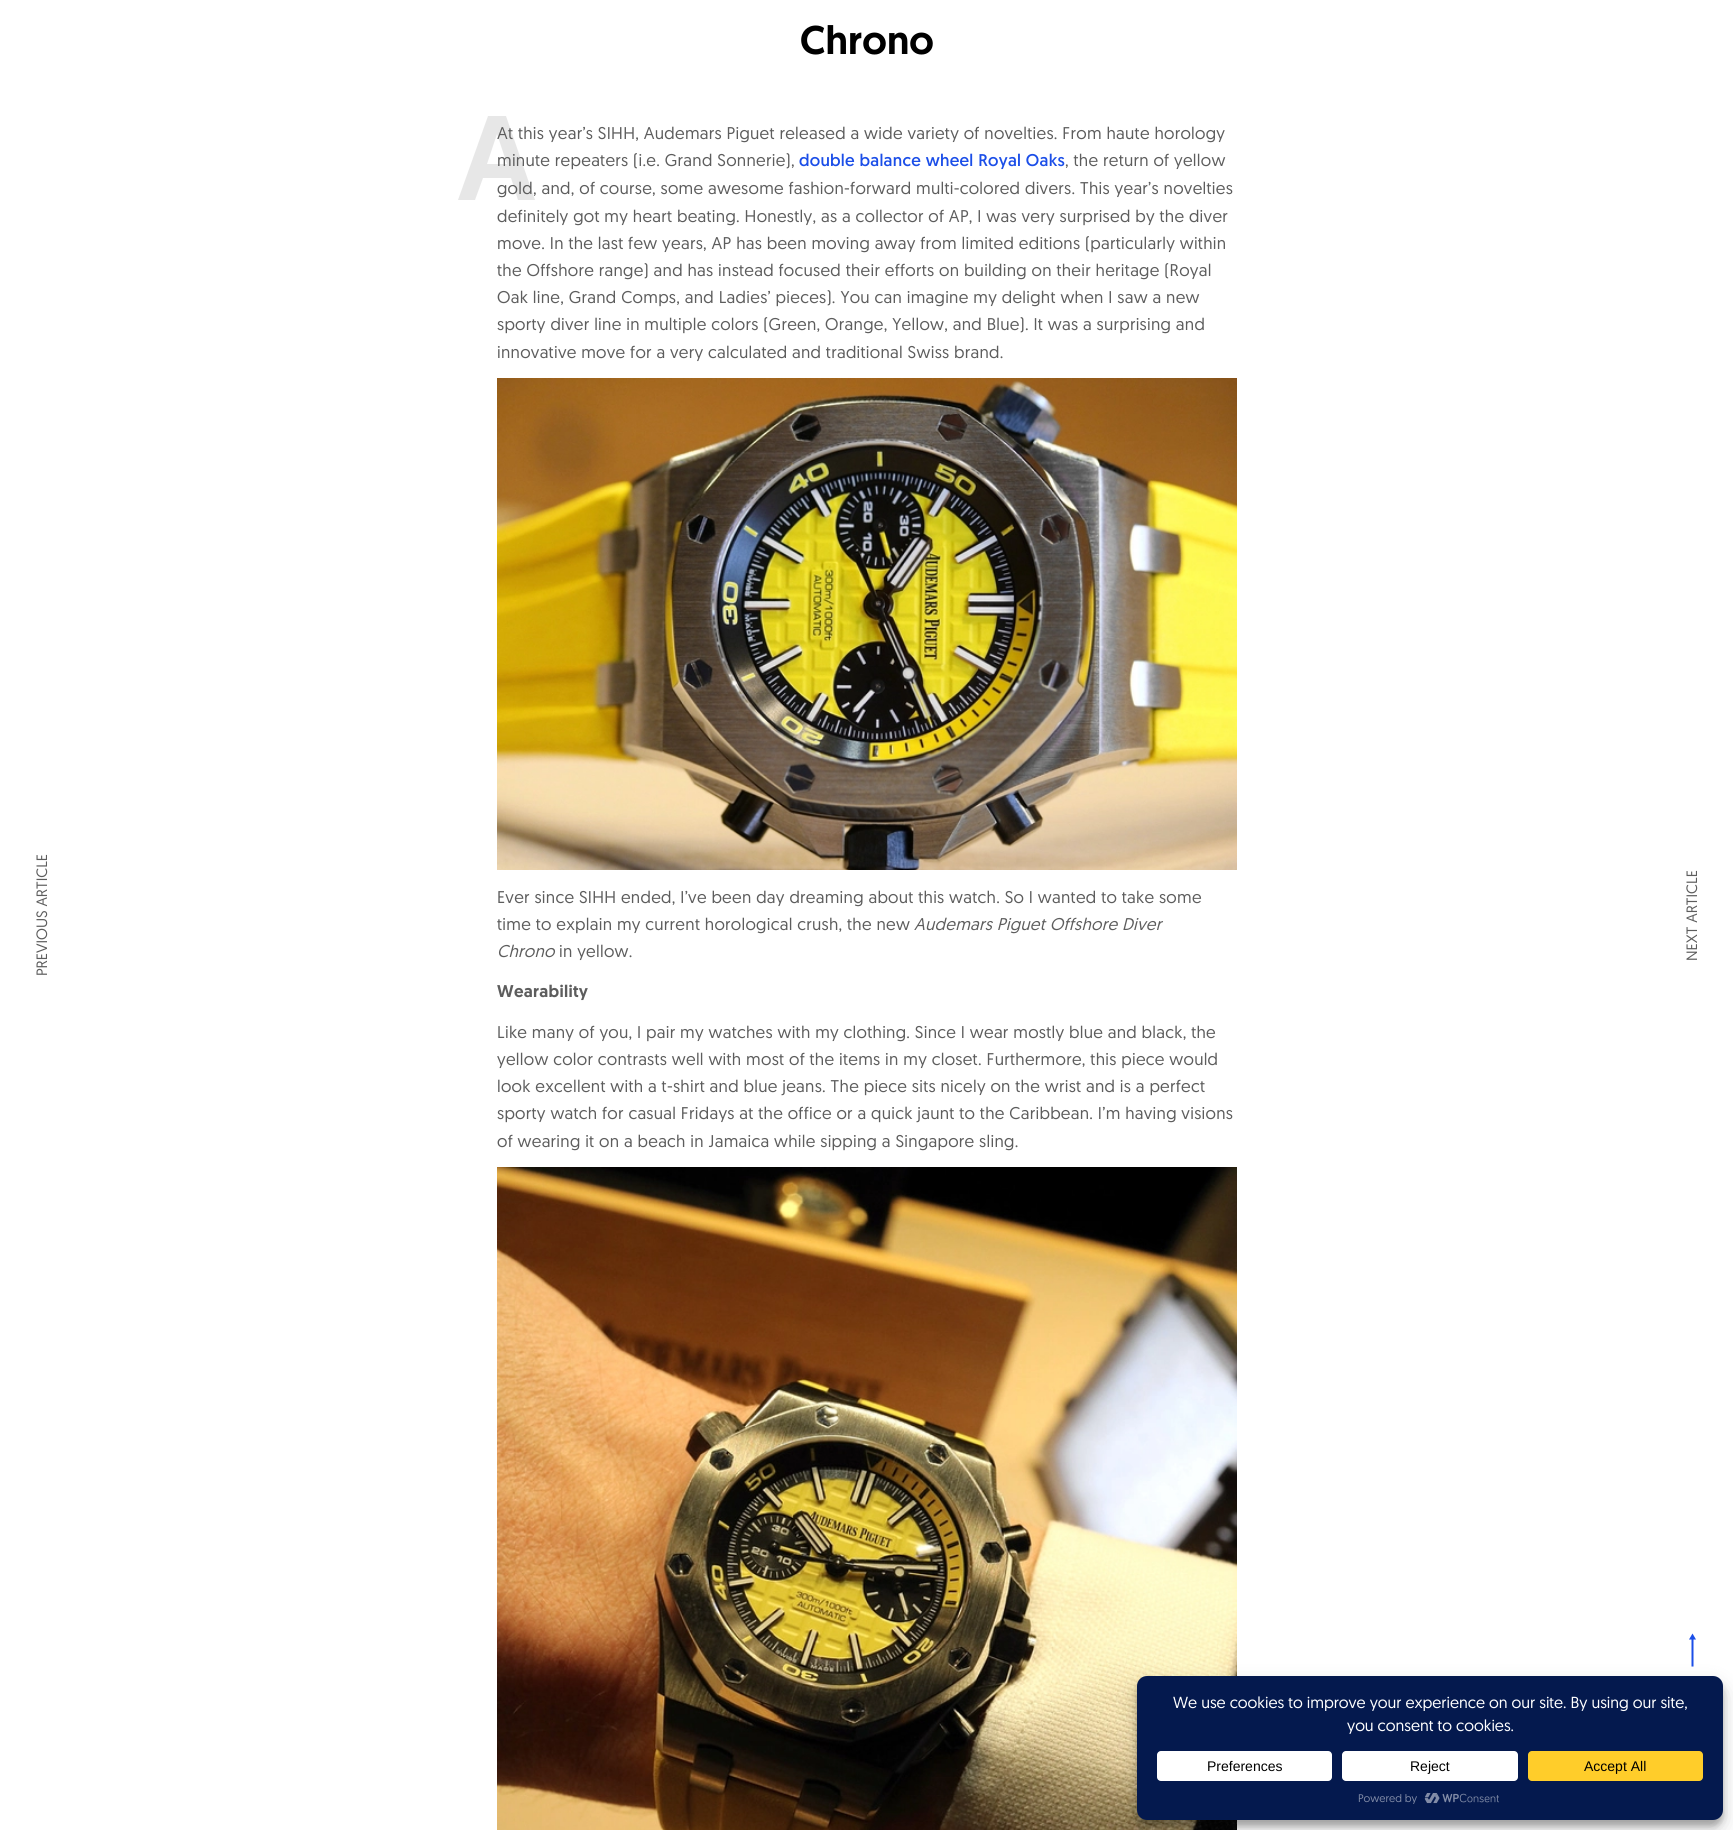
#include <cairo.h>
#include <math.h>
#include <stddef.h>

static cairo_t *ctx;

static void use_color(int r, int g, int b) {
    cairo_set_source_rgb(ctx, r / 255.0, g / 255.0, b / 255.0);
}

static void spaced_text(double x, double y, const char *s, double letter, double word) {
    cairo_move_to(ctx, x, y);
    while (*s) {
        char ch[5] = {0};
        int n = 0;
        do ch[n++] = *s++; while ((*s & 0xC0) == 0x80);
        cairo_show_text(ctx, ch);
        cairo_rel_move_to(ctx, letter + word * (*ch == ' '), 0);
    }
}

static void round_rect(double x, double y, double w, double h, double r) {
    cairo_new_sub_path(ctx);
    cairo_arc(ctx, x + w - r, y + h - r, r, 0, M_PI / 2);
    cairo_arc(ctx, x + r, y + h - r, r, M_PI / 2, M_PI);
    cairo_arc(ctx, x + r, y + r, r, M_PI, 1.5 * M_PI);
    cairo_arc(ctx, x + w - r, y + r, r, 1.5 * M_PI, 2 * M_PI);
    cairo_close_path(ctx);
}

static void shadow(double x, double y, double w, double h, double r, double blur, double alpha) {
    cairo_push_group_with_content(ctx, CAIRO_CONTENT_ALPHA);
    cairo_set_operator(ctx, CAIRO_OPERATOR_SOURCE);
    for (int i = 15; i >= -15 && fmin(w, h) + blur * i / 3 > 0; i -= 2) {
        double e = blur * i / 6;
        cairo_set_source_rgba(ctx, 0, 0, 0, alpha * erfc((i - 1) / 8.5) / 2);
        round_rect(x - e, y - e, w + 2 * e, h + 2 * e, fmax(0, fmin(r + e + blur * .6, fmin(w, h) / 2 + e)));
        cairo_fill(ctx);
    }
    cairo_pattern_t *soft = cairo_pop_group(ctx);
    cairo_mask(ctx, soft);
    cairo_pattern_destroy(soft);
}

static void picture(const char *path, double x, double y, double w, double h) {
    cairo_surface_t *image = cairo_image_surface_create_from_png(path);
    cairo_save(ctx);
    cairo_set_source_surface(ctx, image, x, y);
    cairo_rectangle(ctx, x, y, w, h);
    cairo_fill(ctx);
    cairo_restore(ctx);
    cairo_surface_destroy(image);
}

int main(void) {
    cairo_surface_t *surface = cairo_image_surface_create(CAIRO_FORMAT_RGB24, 1733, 1830);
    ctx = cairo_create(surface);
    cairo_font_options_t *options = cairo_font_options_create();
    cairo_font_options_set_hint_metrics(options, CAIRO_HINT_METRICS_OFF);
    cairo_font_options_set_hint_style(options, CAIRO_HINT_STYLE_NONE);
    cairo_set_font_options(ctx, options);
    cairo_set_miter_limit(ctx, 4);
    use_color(255, 255, 255);
    cairo_paint(ctx);
    cairo_select_font_face(ctx, "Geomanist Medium", CAIRO_FONT_SLANT_NORMAL, CAIRO_FONT_WEIGHT_NORMAL);
    cairo_set_font_size(ctx, 40);
    use_color(0, 0, 0);
    cairo_move_to(ctx, 800, 54);
    cairo_show_text(ctx, "Chrono");
    cairo_set_source_rgba(ctx, 0.075, 0.075, 0.075, 0.1);
    cairo_new_path(ctx);
    cairo_move_to(ctx, 458, 200);
    cairo_line_to(ctx, 488, 116);
    cairo_line_to(ctx, 506, 116);
    cairo_line_to(ctx, 535, 200);
    cairo_line_to(ctx, 518, 200);
    cairo_line_to(ctx, 511, 178);
    cairo_line_to(ctx, 483, 178);
    cairo_line_to(ctx, 475, 200);
    cairo_close_path(ctx);
    cairo_move_to(ctx, 487, 164);
    cairo_line_to(ctx, 507, 164);
    cairo_line_to(ctx, 497, 134);
    cairo_close_path(ctx);
    cairo_fill(ctx);
    cairo_select_font_face(ctx, "Geomanist", CAIRO_FONT_SLANT_NORMAL, CAIRO_FONT_WEIGHT_NORMAL);
    cairo_set_font_size(ctx, 17);
    use_color(93, 93, 93);
    spaced_text(497, 139, "A", 0.3, 0);
    spaced_text(508, 139, "t this year’s SIHH, Audemars Piguet released a wide variety of novelties. From haute horology", 0.3, 0);
    spaced_text(497, 166, "minute repeaters (i.e. Grand Sonnerie),", 0.3, 0);
    cairo_select_font_face(ctx, "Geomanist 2", CAIRO_FONT_SLANT_NORMAL, CAIRO_FONT_WEIGHT_NORMAL);
    use_color(27, 78, 232);
    spaced_text(799, 166, "double balance wheel Royal Oaks", 0.3, 0);
    cairo_select_font_face(ctx, "Geomanist", CAIRO_FONT_SLANT_NORMAL, CAIRO_FONT_WEIGHT_NORMAL);
    use_color(93, 93, 93);
    spaced_text(1065, 166, ", the return of yellow", 0.3, 0);
    spaced_text(497, 194, "gold, and, of course, some awesome fashion-forward multi-colored divers. This year’s novelties", 0.3, 0);
    spaced_text(497, 222, "definitely got my heart beating. Honestly, as a collector of AP, I was very surprised by the diver", 0.3, 0);
    spaced_text(497, 249, "move. In the last few years, AP has been moving away from limited editions (particularly within", 0.3, 0);
    spaced_text(497, 276, "the Offshore range) and has instead focused their efforts on building on their heritage (Royal", 0.3, 0);
    spaced_text(497, 303, "Oak line, Grand Comps, and Ladies’ pieces). You can imagine my delight when I saw a new", 0.3, 0);
    spaced_text(497, 330, "sporty diver line in multiple colors (Green, Orange, Yellow, and Blue). It was a surprising and", 0.3, 0);
    spaced_text(497, 358, "innovative move for a very calculated and traditional Swiss brand.", 0.3, 0);
    picture("img1.png", 497, 378, 740, 492);
    spaced_text(497, 903, "Ever since SIHH ended, I’ve been day dreaming about this watch. So I wanted to take some", 0.3, 0);
    spaced_text(497, 930, "time to explain my current horological crush, the new", 0.3, 0);
    cairo_select_font_face(ctx, "Geomanist", CAIRO_FONT_SLANT_ITALIC, CAIRO_FONT_WEIGHT_NORMAL);
    spaced_text(914, 930, "Audemars Piguet Offshore Diver", 0.3, 0);
    spaced_text(497, 957, "Chrono", 0.3, 0);
    cairo_select_font_face(ctx, "Geomanist", CAIRO_FONT_SLANT_NORMAL, CAIRO_FONT_WEIGHT_NORMAL);
    spaced_text(559, 957, "in yellow.", 0.3, 0);
    cairo_select_font_face(ctx, "Geomanist Medium", CAIRO_FONT_SLANT_NORMAL, CAIRO_FONT_WEIGHT_NORMAL);
    spaced_text(497, 997, "Wearability", 0.3, 0);
    cairo_select_font_face(ctx, "Geomanist", CAIRO_FONT_SLANT_NORMAL, CAIRO_FONT_WEIGHT_NORMAL);
    spaced_text(497, 1038, "Like many of you, I pair my watches with my clothing. Since I wear mostly blue and black, the", 0.3, 0);
    spaced_text(497, 1065, "yellow color contrasts well with most of the items in my closet. Furthermore, this piece would", 0.3, 0);
    spaced_text(497, 1092, "look excellent with a t-shirt and blue jeans. The piece sits nicely on the wrist and is a perfect", 0.3, 0);
    spaced_text(497, 1119, "sporty watch for casual Fridays at the office or a quick jaunt to the Caribbean. I’m having visions", 0.3, 0);
    spaced_text(497, 1147, "of wearing it on a beach in Jamaica while sipping a Singapore sling.", 0.3, 0);
    picture("img2.png", 497, 1167, 740, 663);
    cairo_set_font_size(ctx, 15);
    cairo_save(ctx);
    cairo_translate(ctx, 47, 976);
    cairo_rotate(ctx, -90 * M_PI / 180);
    cairo_move_to(ctx, 0, 0);
    cairo_show_text(ctx, "PREVIOUS ARTICLE");
    cairo_restore(ctx);
    cairo_save(ctx);
    cairo_translate(ctx, 1697, 961);
    cairo_rotate(ctx, -90 * M_PI / 180);
    cairo_move_to(ctx, 0, 0);
    cairo_show_text(ctx, "NEXT ARTICLE");
    cairo_restore(ctx);
    use_color(27, 78, 232);
    cairo_new_path(ctx);
    cairo_move_to(ctx, 1691.5, 1666.5);
    cairo_line_to(ctx, 1691.5, 1639.5);
    cairo_line_to(ctx, 1689, 1639.5);
    cairo_line_to(ctx, 1692.5, 1633.5);
    cairo_line_to(ctx, 1696, 1639.5);
    cairo_line_to(ctx, 1693.5, 1639.5);
    cairo_line_to(ctx, 1693.5, 1666.5);
    cairo_close_path(ctx);
    cairo_fill(ctx);
    use_color(0, 0, 0);
    shadow(1137, 1682, 586, 144, 10, 3, 0.23);
    shadow(1137, 1686, 586, 144, 10, 10, 0.19);
    use_color(4, 25, 78);
    round_rect(1137, 1676, 586, 144, 10);
    cairo_fill(ctx);
    cairo_set_font_size(ctx, 16);
    use_color(255, 255, 255);
    cairo_move_to(ctx, 1173, 1708);
    cairo_show_text(ctx, "We use cookies to improve your experience on our site. By using our site,");
    cairo_move_to(ctx, 1347, 1731);
    cairo_show_text(ctx, "you consent to cookies.");
    round_rect(1157, 1751, 175, 30, 4);
    cairo_fill(ctx);
    cairo_select_font_face(ctx, "Liberation Sans", CAIRO_FONT_SLANT_NORMAL, CAIRO_FONT_WEIGHT_NORMAL);
    cairo_set_font_size(ctx, 14);
    use_color(0, 0, 0);
    cairo_move_to(ctx, 1207, 1771);
    cairo_show_text(ctx, "Preferences");
    use_color(255, 255, 255);
    round_rect(1342, 1751, 176, 30, 4);
    cairo_fill(ctx);
    use_color(0, 0, 0);
    cairo_move_to(ctx, 1410, 1771);
    cairo_show_text(ctx, "Reject");
    use_color(255, 205, 42);
    round_rect(1528, 1751, 175, 30, 4);
    cairo_fill(ctx);
    use_color(0, 0, 0);
    cairo_move_to(ctx, 1584, 1771);
    cairo_show_text(ctx, "Accept All");
    cairo_select_font_face(ctx, "Geomanist", CAIRO_FONT_SLANT_NORMAL, CAIRO_FONT_WEIGHT_NORMAL);
    cairo_set_font_size(ctx, 11);
    use_color(130, 140, 167);
    cairo_move_to(ctx, 1358, 1802);
    cairo_show_text(ctx, "Powered by");
    picture("img3.png", 1424, 1793, 75, 11);
    cairo_surface_write_to_png(surface, "result.png");
    cairo_font_options_destroy(options);
    cairo_destroy(ctx);
    cairo_surface_destroy(surface);
    return 0;
}
